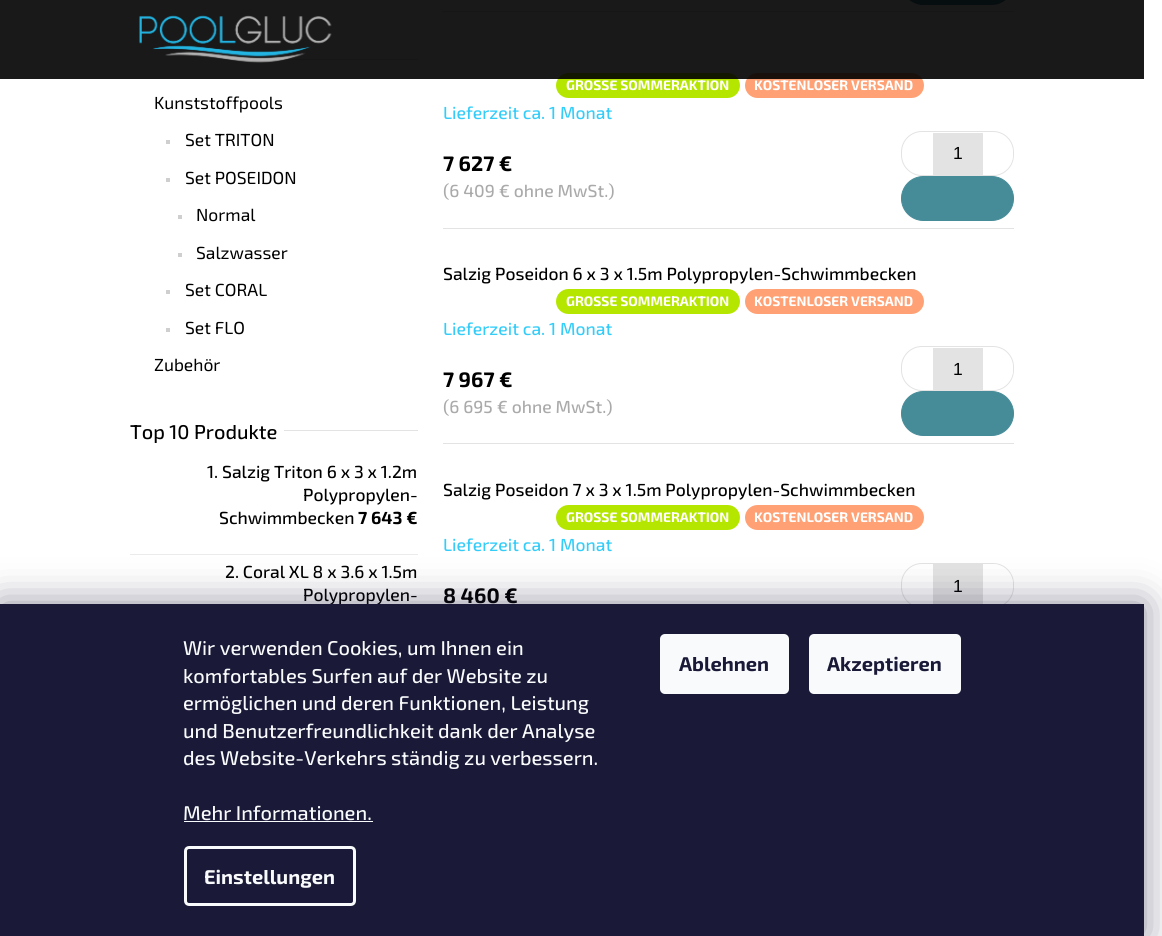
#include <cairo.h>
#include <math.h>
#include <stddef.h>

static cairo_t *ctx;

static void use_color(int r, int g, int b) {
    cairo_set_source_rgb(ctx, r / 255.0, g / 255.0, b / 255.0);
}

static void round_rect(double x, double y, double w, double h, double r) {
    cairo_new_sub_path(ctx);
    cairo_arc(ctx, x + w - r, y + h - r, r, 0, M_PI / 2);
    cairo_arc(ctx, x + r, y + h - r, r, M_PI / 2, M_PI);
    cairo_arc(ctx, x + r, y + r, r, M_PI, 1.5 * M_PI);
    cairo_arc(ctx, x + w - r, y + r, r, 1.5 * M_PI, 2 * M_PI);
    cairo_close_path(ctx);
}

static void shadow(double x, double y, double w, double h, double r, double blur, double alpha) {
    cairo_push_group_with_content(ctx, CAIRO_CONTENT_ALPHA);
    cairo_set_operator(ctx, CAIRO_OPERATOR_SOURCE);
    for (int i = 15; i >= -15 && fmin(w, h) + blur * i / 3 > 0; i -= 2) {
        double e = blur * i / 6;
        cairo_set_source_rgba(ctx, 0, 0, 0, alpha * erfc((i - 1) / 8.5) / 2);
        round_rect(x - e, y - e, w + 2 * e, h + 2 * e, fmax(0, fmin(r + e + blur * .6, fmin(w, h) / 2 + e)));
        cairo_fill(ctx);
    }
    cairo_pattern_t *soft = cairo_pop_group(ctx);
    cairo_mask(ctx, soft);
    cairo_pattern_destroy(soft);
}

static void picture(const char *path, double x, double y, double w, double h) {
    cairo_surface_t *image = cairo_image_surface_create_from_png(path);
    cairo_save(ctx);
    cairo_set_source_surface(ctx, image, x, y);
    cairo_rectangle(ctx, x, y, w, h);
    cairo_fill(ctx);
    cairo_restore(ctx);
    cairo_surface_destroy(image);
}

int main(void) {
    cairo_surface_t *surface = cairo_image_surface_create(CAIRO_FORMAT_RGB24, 1162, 936);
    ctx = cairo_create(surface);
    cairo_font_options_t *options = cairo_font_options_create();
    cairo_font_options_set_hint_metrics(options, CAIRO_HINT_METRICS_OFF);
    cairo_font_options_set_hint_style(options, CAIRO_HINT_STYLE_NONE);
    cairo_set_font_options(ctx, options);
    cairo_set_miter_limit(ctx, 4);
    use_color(255, 255, 255);
    cairo_paint(ctx);
    use_color(227, 227, 227);
    cairo_rectangle(ctx, 236, 59, 182, 1);
    cairo_fill(ctx);
    use_color(70, 140, 152);
    round_rect(901.5, -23.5, 112, 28, 22);
    cairo_fill_preserve(ctx);
    cairo_set_line_width(ctx, 1);
    cairo_stroke(ctx);
    use_color(227, 227, 227);
    cairo_rectangle(ctx, 443, 11, 571, 1);
    cairo_fill(ctx);
    use_color(180, 230, 0);
    round_rect(556, 73, 184, 25, 12.5);
    cairo_fill(ctx);
    use_color(255, 161, 116);
    round_rect(745, 73, 179, 25, 12.5);
    cairo_fill(ctx);
    cairo_set_source_rgba(ctx, 0, 0, 0, 0.9);
    cairo_rectangle(ctx, 0, 0, 1144, 79);
    cairo_fill(ctx);
    picture("img1.png", 139, 15, 193, 48);
    cairo_select_font_face(ctx, "Exo 2", CAIRO_FONT_SLANT_NORMAL, CAIRO_FONT_WEIGHT_NORMAL);
    cairo_set_font_size(ctx, 17.5);
    use_color(0, 0, 0);
    cairo_move_to(ctx, 154, 109);
    cairo_show_text(ctx, "Kunststoffpools");
    use_color(207, 207, 207);
    cairo_rectangle(ctx, 166, 140, 4, 4);
    cairo_fill(ctx);
    use_color(0, 0, 0);
    cairo_move_to(ctx, 185, 146);
    cairo_show_text(ctx, "Set TRITON");
    use_color(207, 207, 207);
    cairo_rectangle(ctx, 166, 178, 4, 4);
    cairo_fill(ctx);
    use_color(0, 0, 0);
    cairo_move_to(ctx, 185, 184);
    cairo_show_text(ctx, "Set POSEIDON");
    use_color(207, 207, 207);
    cairo_rectangle(ctx, 178, 215, 4, 4);
    cairo_fill(ctx);
    use_color(0, 0, 0);
    cairo_move_to(ctx, 196, 221);
    cairo_show_text(ctx, "Normal");
    use_color(207, 207, 207);
    cairo_rectangle(ctx, 178, 253, 4, 4);
    cairo_fill(ctx);
    use_color(0, 0, 0);
    cairo_move_to(ctx, 196, 259);
    cairo_show_text(ctx, "Salzwasser");
    use_color(207, 207, 207);
    cairo_rectangle(ctx, 166, 290, 4, 4);
    cairo_fill(ctx);
    use_color(0, 0, 0);
    cairo_move_to(ctx, 185, 296);
    cairo_show_text(ctx, "Set CORAL");
    use_color(207, 207, 207);
    cairo_rectangle(ctx, 166, 328, 4, 4);
    cairo_fill(ctx);
    use_color(0, 0, 0);
    cairo_move_to(ctx, 185, 334);
    cairo_show_text(ctx, "Set FLO");
    cairo_move_to(ctx, 154, 371);
    cairo_show_text(ctx, "Zubehör");
    cairo_select_font_face(ctx, "Exo 2 Medium", CAIRO_FONT_SLANT_NORMAL, CAIRO_FONT_WEIGHT_NORMAL);
    cairo_set_font_size(ctx, 20);
    cairo_move_to(ctx, 130, 439);
    cairo_show_text(ctx, "Top 10 Produkte");
    use_color(227, 227, 227);
    cairo_rectangle(ctx, 284, 430, 134, 1);
    cairo_fill(ctx);
    use_color(235, 235, 235);
    cairo_rectangle(ctx, 130, 554, 288, 1);
    cairo_fill(ctx);
    cairo_set_font_size(ctx, 17.5);
    use_color(0, 0, 0);
    cairo_move_to(ctx, 207, 478);
    cairo_show_text(ctx, "1. Salzig Triton 6 x 3 x 1.2m");
    cairo_move_to(ctx, 303, 501);
    cairo_show_text(ctx, "Polypropylen-");
    cairo_move_to(ctx, 219, 524);
    cairo_show_text(ctx, "Schwimmbecken");
    cairo_select_font_face(ctx, "Exo 2", CAIRO_FONT_SLANT_NORMAL, CAIRO_FONT_WEIGHT_BOLD);
    cairo_move_to(ctx, 358, 524);
    cairo_show_text(ctx, "7 643 €");
    cairo_select_font_face(ctx, "Exo 2 Medium", CAIRO_FONT_SLANT_NORMAL, CAIRO_FONT_WEIGHT_NORMAL);
    cairo_move_to(ctx, 225, 578);
    cairo_show_text(ctx, "2. Coral XL 8 x 3.6 x 1.5m");
    cairo_move_to(ctx, 303, 601);
    cairo_show_text(ctx, "Polypropylen-");
    cairo_select_font_face(ctx, "Exo 2", CAIRO_FONT_SLANT_NORMAL, CAIRO_FONT_WEIGHT_BOLD);
    cairo_set_font_size(ctx, 13.75);
    use_color(255, 255, 255);
    cairo_move_to(ctx, 566, 90);
    cairo_show_text(ctx, "GROSSE SOMMERAKTION");
    cairo_move_to(ctx, 754, 90);
    cairo_show_text(ctx, "KOSTENLOSER VERSAND");
    cairo_select_font_face(ctx, "Exo 2 Medium", CAIRO_FONT_SLANT_NORMAL, CAIRO_FONT_WEIGHT_NORMAL);
    cairo_set_font_size(ctx, 17.5);
    use_color(52, 205, 249);
    cairo_move_to(ctx, 443, 119);
    cairo_show_text(ctx, "Lieferzeit ca. 1 Monat");
    round_rect(901.5, 131.5, 112, 44, 20.5);
    use_color(227, 227, 227);
    cairo_stroke(ctx);
    cairo_rectangle(ctx, 933, 133, 50, 42);
    cairo_fill(ctx);
    cairo_select_font_face(ctx, "Liberation Sans", CAIRO_FONT_SLANT_NORMAL, CAIRO_FONT_WEIGHT_NORMAL);
    use_color(0, 0, 0);
    cairo_move_to(ctx, 953, 159);
    cairo_show_text(ctx, "1");
    use_color(255, 255, 255);
    cairo_new_path(ctx);
    cairo_move_to(ctx, 983, 133);
    cairo_line_to(ctx, 992, 133);
    cairo_curve_to(ctx, 1003.5, 133, 1013, 142.5, 1013, 154);
    cairo_curve_to(ctx, 1013, 165.5, 1003.5, 175, 992, 175);
    cairo_line_to(ctx, 983, 175);
    cairo_close_path(ctx);
    cairo_fill(ctx);
    use_color(70, 140, 152);
    round_rect(901.5, 176.5, 112, 44, 22);
    cairo_fill_preserve(ctx);
    cairo_stroke(ctx);
    cairo_select_font_face(ctx, "Exo 2", CAIRO_FONT_SLANT_NORMAL, CAIRO_FONT_WEIGHT_BOLD);
    cairo_set_font_size(ctx, 21);
    use_color(0, 0, 0);
    cairo_move_to(ctx, 443, 171);
    cairo_show_text(ctx, "7 627 €");
    cairo_select_font_face(ctx, "Exo 2 Medium", CAIRO_FONT_SLANT_NORMAL, CAIRO_FONT_WEIGHT_NORMAL);
    cairo_set_font_size(ctx, 17.5);
    use_color(170, 170, 170);
    cairo_move_to(ctx, 443, 197);
    cairo_show_text(ctx, "(6 409 € ohne MwSt.)");
    use_color(227, 227, 227);
    cairo_rectangle(ctx, 443, 228, 571, 1);
    cairo_fill(ctx);
    use_color(0, 0, 0);
    cairo_move_to(ctx, 443, 280);
    cairo_show_text(ctx, "Salzig Poseidon 6 x 3 x 1.5m Polypropylen-Schwimmbecken");
    use_color(180, 230, 0);
    round_rect(556, 289, 184, 25, 12.5);
    cairo_fill(ctx);
    cairo_select_font_face(ctx, "Exo 2", CAIRO_FONT_SLANT_NORMAL, CAIRO_FONT_WEIGHT_BOLD);
    cairo_set_font_size(ctx, 13.75);
    use_color(255, 255, 255);
    cairo_move_to(ctx, 566, 306);
    cairo_show_text(ctx, "GROSSE SOMMERAKTION");
    use_color(255, 161, 116);
    round_rect(745, 289, 179, 25, 12.5);
    cairo_fill(ctx);
    use_color(255, 255, 255);
    cairo_move_to(ctx, 754, 306);
    cairo_show_text(ctx, "KOSTENLOSER VERSAND");
    cairo_select_font_face(ctx, "Exo 2 Medium", CAIRO_FONT_SLANT_NORMAL, CAIRO_FONT_WEIGHT_NORMAL);
    cairo_set_font_size(ctx, 17.5);
    use_color(52, 205, 249);
    cairo_move_to(ctx, 443, 335);
    cairo_show_text(ctx, "Lieferzeit ca. 1 Monat");
    round_rect(901.5, 346.5, 112, 44, 20.5);
    use_color(227, 227, 227);
    cairo_stroke(ctx);
    cairo_rectangle(ctx, 933, 348, 50, 42);
    cairo_fill(ctx);
    cairo_select_font_face(ctx, "Liberation Sans", CAIRO_FONT_SLANT_NORMAL, CAIRO_FONT_WEIGHT_NORMAL);
    use_color(0, 0, 0);
    cairo_move_to(ctx, 953, 375);
    cairo_show_text(ctx, "1");
    use_color(255, 255, 255);
    cairo_new_path(ctx);
    cairo_move_to(ctx, 983, 348);
    cairo_line_to(ctx, 992, 348);
    cairo_curve_to(ctx, 1003.5, 348, 1013, 357.5, 1013, 369);
    cairo_curve_to(ctx, 1013, 380.5, 1003.5, 390, 992, 390);
    cairo_line_to(ctx, 983, 390);
    cairo_close_path(ctx);
    cairo_fill(ctx);
    use_color(70, 140, 152);
    round_rect(901.5, 391.5, 112, 44, 22);
    cairo_fill_preserve(ctx);
    cairo_stroke(ctx);
    cairo_select_font_face(ctx, "Exo 2", CAIRO_FONT_SLANT_NORMAL, CAIRO_FONT_WEIGHT_BOLD);
    cairo_set_font_size(ctx, 21);
    use_color(0, 0, 0);
    cairo_move_to(ctx, 443, 387);
    cairo_show_text(ctx, "7 967 €");
    cairo_select_font_face(ctx, "Exo 2 Medium", CAIRO_FONT_SLANT_NORMAL, CAIRO_FONT_WEIGHT_NORMAL);
    cairo_set_font_size(ctx, 17.5);
    use_color(170, 170, 170);
    cairo_move_to(ctx, 443, 413);
    cairo_show_text(ctx, "(6 695 € ohne MwSt.)");
    use_color(227, 227, 227);
    cairo_rectangle(ctx, 443, 443, 571, 1);
    cairo_fill(ctx);
    use_color(0, 0, 0);
    cairo_move_to(ctx, 443, 496);
    cairo_show_text(ctx, "Salzig Poseidon 7 x 3 x 1.5m Polypropylen-Schwimmbecken");
    use_color(180, 230, 0);
    round_rect(556, 505, 184, 25, 12.5);
    cairo_fill(ctx);
    cairo_select_font_face(ctx, "Exo 2", CAIRO_FONT_SLANT_NORMAL, CAIRO_FONT_WEIGHT_BOLD);
    cairo_set_font_size(ctx, 13.75);
    use_color(255, 255, 255);
    cairo_move_to(ctx, 566, 522);
    cairo_show_text(ctx, "GROSSE SOMMERAKTION");
    use_color(255, 161, 116);
    round_rect(745, 505, 179, 25, 12.5);
    cairo_fill(ctx);
    use_color(255, 255, 255);
    cairo_move_to(ctx, 754, 522);
    cairo_show_text(ctx, "KOSTENLOSER VERSAND");
    cairo_select_font_face(ctx, "Exo 2 Medium", CAIRO_FONT_SLANT_NORMAL, CAIRO_FONT_WEIGHT_NORMAL);
    cairo_set_font_size(ctx, 17.5);
    use_color(52, 205, 249);
    cairo_move_to(ctx, 443, 551);
    cairo_show_text(ctx, "Lieferzeit ca. 1 Monat");
    round_rect(901.5, 563.5, 112, 44, 20.5);
    use_color(227, 227, 227);
    cairo_stroke(ctx);
    cairo_rectangle(ctx, 933, 564, 50, 40);
    cairo_fill(ctx);
    cairo_select_font_face(ctx, "Liberation Sans", CAIRO_FONT_SLANT_NORMAL, CAIRO_FONT_WEIGHT_NORMAL);
    use_color(0, 0, 0);
    cairo_move_to(ctx, 953, 592);
    cairo_show_text(ctx, "1");
    use_color(255, 255, 255);
    cairo_new_path(ctx);
    cairo_move_to(ctx, 983, 564);
    cairo_line_to(ctx, 992, 564);
    cairo_curve_to(ctx, 1003.5, 564, 1013, 573.5, 1013, 585);
    cairo_curve_to(ctx, 1013, 596.5, 1003.5, 606, 992, 606);
    cairo_line_to(ctx, 983, 606);
    cairo_close_path(ctx);
    cairo_fill(ctx);
    cairo_select_font_face(ctx, "Exo 2", CAIRO_FONT_SLANT_NORMAL, CAIRO_FONT_WEIGHT_BOLD);
    cairo_set_font_size(ctx, 21);
    use_color(0, 0, 0);
    cairo_move_to(ctx, 443, 603);
    cairo_show_text(ctx, "8 460 €");
    use_color(27, 25, 57);
    shadow(0, 604, 1144, 332, 0, 19, 0.5);
    use_color(26, 25, 55);
    cairo_rectangle(ctx, 0, 604, 1144, 332);
    cairo_fill(ctx);
    cairo_select_font_face(ctx, "Exo 2 Medium", CAIRO_FONT_SLANT_NORMAL, CAIRO_FONT_WEIGHT_NORMAL);
    cairo_set_font_size(ctx, 20);
    use_color(248, 250, 251);
    cairo_move_to(ctx, 183, 655);
    cairo_show_text(ctx, "Wir verwenden Cookies, um Ihnen ein");
    cairo_move_to(ctx, 183, 683);
    cairo_show_text(ctx, "komfortables Surfen auf der Website zu");
    cairo_move_to(ctx, 183, 710);
    cairo_show_text(ctx, "ermöglichen und deren Funktionen, Leistung");
    cairo_move_to(ctx, 183, 738);
    cairo_show_text(ctx, "und Benutzerfreundlichkeit dank der Analyse");
    cairo_move_to(ctx, 183, 765);
    cairo_show_text(ctx, "des Website-Verkehrs ständig zu verbessern.");
    cairo_move_to(ctx, 183, 820);
    cairo_show_text(ctx, "Mehr Informationen.");
    cairo_rectangle(ctx, 184, 821, 189, 1);
    cairo_fill(ctx);
    round_rect(185.5, 847.5, 169, 57, 3.5);
    cairo_set_line_width(ctx, 3);
    cairo_stroke(ctx);
    cairo_select_font_face(ctx, "Exo 2", CAIRO_FONT_SLANT_NORMAL, CAIRO_FONT_WEIGHT_BOLD);
    cairo_move_to(ctx, 204, 884);
    cairo_show_text(ctx, "Einstellungen");
    round_rect(660, 634, 129, 60, 5);
    cairo_fill(ctx);
    use_color(26, 25, 55);
    cairo_move_to(ctx, 679, 671);
    cairo_show_text(ctx, "Ablehnen");
    use_color(248, 250, 251);
    round_rect(809, 634, 152, 60, 5);
    cairo_fill(ctx);
    use_color(26, 25, 55);
    cairo_move_to(ctx, 827, 671);
    cairo_show_text(ctx, "Akzeptieren");
    cairo_surface_write_to_png(surface, "result.png");
    cairo_font_options_destroy(options);
    cairo_destroy(ctx);
    cairo_surface_destroy(surface);
    return 0;
}
